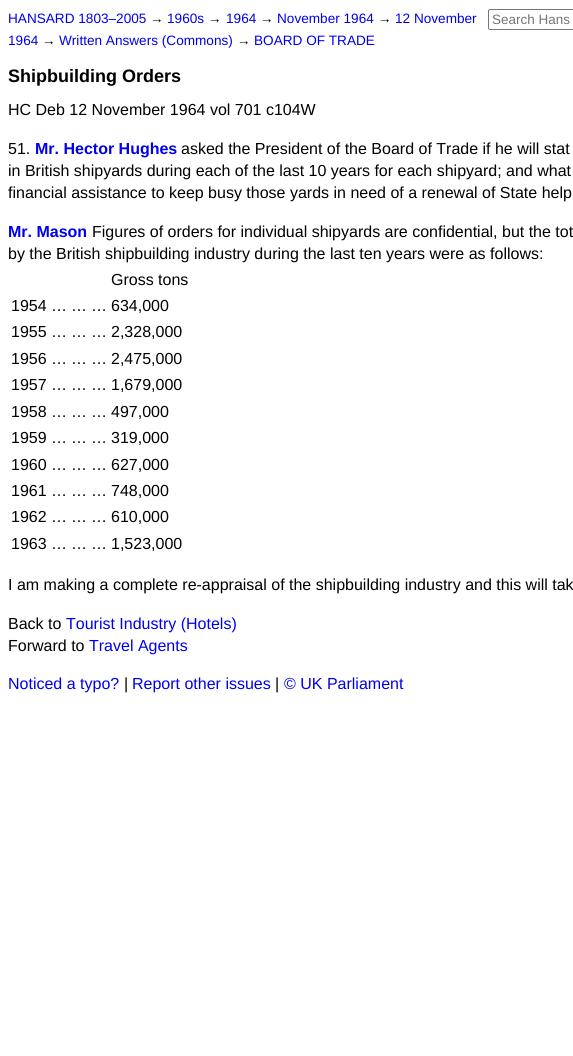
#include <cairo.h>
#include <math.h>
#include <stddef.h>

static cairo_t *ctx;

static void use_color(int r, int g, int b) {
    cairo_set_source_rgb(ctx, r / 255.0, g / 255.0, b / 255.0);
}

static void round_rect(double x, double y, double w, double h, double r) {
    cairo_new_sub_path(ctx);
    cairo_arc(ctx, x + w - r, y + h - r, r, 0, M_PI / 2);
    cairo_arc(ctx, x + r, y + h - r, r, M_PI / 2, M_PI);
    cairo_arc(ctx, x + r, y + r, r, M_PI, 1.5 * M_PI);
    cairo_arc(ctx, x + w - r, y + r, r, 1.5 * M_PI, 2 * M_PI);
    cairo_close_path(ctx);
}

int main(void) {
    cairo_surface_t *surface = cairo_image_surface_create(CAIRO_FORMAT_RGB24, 573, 1056);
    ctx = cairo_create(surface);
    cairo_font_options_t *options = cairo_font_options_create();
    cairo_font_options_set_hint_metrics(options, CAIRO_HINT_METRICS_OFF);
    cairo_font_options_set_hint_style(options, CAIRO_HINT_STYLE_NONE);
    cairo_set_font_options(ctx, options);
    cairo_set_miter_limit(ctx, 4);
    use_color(255, 255, 255);
    cairo_paint(ctx);
    cairo_select_font_face(ctx, "Liberation Sans", CAIRO_FONT_SLANT_NORMAL, CAIRO_FONT_WEIGHT_NORMAL);
    cairo_set_font_size(ctx, 13.6);
    use_color(0, 0, 238);
    cairo_move_to(ctx, 8, 23);
    cairo_show_text(ctx, "HANSARD 1803–2005");
    use_color(0, 0, 0);
    cairo_move_to(ctx, 150, 23);
    cairo_show_text(ctx, "→");
    use_color(0, 0, 238);
    cairo_move_to(ctx, 167, 23);
    cairo_show_text(ctx, "1960s");
    use_color(0, 0, 0);
    cairo_move_to(ctx, 208, 23);
    cairo_show_text(ctx, "→");
    use_color(0, 0, 238);
    cairo_move_to(ctx, 226, 23);
    cairo_show_text(ctx, "1964");
    use_color(0, 0, 0);
    cairo_move_to(ctx, 260, 23);
    cairo_show_text(ctx, "→");
    use_color(0, 0, 238);
    cairo_move_to(ctx, 277, 23);
    cairo_show_text(ctx, "November 1964");
    use_color(0, 0, 0);
    cairo_move_to(ctx, 378, 23);
    cairo_show_text(ctx, "→");
    use_color(0, 0, 238);
    cairo_move_to(ctx, 395, 23);
    cairo_show_text(ctx, "12 November");
    cairo_move_to(ctx, 8, 45);
    cairo_show_text(ctx, "1964");
    use_color(0, 0, 0);
    cairo_move_to(ctx, 42, 45);
    cairo_show_text(ctx, "→");
    use_color(0, 0, 238);
    cairo_move_to(ctx, 59, 45);
    cairo_show_text(ctx, "Written Answers (Commons)");
    use_color(0, 0, 0);
    cairo_move_to(ctx, 237, 45);
    cairo_show_text(ctx, "→");
    use_color(0, 0, 238);
    cairo_move_to(ctx, 254, 45);
    cairo_show_text(ctx, "BOARD OF TRADE");
    round_rect(488.5, 9.5, 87, 20, 1.5);
    use_color(118, 118, 118);
    cairo_set_line_width(ctx, 1);
    cairo_stroke(ctx);
    cairo_set_font_size(ctx, 13.5);
    use_color(117, 117, 117);
    cairo_move_to(ctx, 492, 24);
    cairo_show_text(ctx, "Search Hans");
    cairo_select_font_face(ctx, "Liberation Sans", CAIRO_FONT_SLANT_NORMAL, CAIRO_FONT_WEIGHT_BOLD);
    cairo_set_font_size(ctx, 18);
    use_color(0, 0, 0);
    cairo_move_to(ctx, 8, 82);
    cairo_show_text(ctx, "Shipbuilding Orders");
    cairo_select_font_face(ctx, "Liberation Sans", CAIRO_FONT_SLANT_NORMAL, CAIRO_FONT_WEIGHT_NORMAL);
    cairo_set_font_size(ctx, 16);
    cairo_move_to(ctx, 8, 115);
    cairo_show_text(ctx, "HC Deb 12 November 1964 vol 701 c104W");
    cairo_move_to(ctx, 8, 154);
    cairo_show_text(ctx, "51.");
    cairo_select_font_face(ctx, "Liberation Sans", CAIRO_FONT_SLANT_NORMAL, CAIRO_FONT_WEIGHT_BOLD);
    use_color(0, 0, 238);
    cairo_move_to(ctx, 35, 154);
    cairo_show_text(ctx, "Mr. Hector Hughes");
    cairo_select_font_face(ctx, "Liberation Sans", CAIRO_FONT_SLANT_NORMAL, CAIRO_FONT_WEIGHT_NORMAL);
    use_color(0, 0, 0);
    cairo_move_to(ctx, 181, 154);
    cairo_show_text(ctx, "asked the President of the Board of Trade if he will stat");
    cairo_move_to(ctx, 8, 176);
    cairo_show_text(ctx, "in British shipyards during each of the last 10 years for each shipyard; and what");
    cairo_move_to(ctx, 8, 198);
    cairo_show_text(ctx, "financial assistance to keep busy those yards in need of a renewal of State help");
    cairo_select_font_face(ctx, "Liberation Sans", CAIRO_FONT_SLANT_NORMAL, CAIRO_FONT_WEIGHT_BOLD);
    use_color(0, 0, 238);
    cairo_move_to(ctx, 8, 237);
    cairo_show_text(ctx, "Mr. Mason");
    cairo_select_font_face(ctx, "Liberation Sans", CAIRO_FONT_SLANT_NORMAL, CAIRO_FONT_WEIGHT_NORMAL);
    use_color(0, 0, 0);
    cairo_move_to(ctx, 92, 237);
    cairo_show_text(ctx, "Figures of orders for individual shipyards are confidential, but the tot");
    cairo_move_to(ctx, 8, 259);
    cairo_show_text(ctx, "by the British shipbuilding industry during the last ten years were as follows:");
    cairo_move_to(ctx, 111, 285);
    cairo_show_text(ctx, "Gross tons");
    cairo_move_to(ctx, 11, 311);
    cairo_show_text(ctx, "1954");
    cairo_move_to(ctx, 51, 311);
    cairo_show_text(ctx, "…");
    cairo_move_to(ctx, 71, 311);
    cairo_show_text(ctx, "…");
    cairo_move_to(ctx, 91, 311);
    cairo_show_text(ctx, "…");
    cairo_move_to(ctx, 111, 311);
    cairo_show_text(ctx, "634,000");
    cairo_move_to(ctx, 11, 337);
    cairo_show_text(ctx, "1955");
    cairo_move_to(ctx, 51, 337);
    cairo_show_text(ctx, "…");
    cairo_move_to(ctx, 71, 337);
    cairo_show_text(ctx, "…");
    cairo_move_to(ctx, 91, 337);
    cairo_show_text(ctx, "…");
    cairo_move_to(ctx, 111, 337);
    cairo_show_text(ctx, "2,328,000");
    cairo_move_to(ctx, 11, 364);
    cairo_show_text(ctx, "1956");
    cairo_move_to(ctx, 51, 364);
    cairo_show_text(ctx, "…");
    cairo_move_to(ctx, 71, 364);
    cairo_show_text(ctx, "…");
    cairo_move_to(ctx, 91, 364);
    cairo_show_text(ctx, "…");
    cairo_move_to(ctx, 111, 364);
    cairo_show_text(ctx, "2,475,000");
    cairo_move_to(ctx, 11, 390);
    cairo_show_text(ctx, "1957");
    cairo_move_to(ctx, 51, 390);
    cairo_show_text(ctx, "…");
    cairo_move_to(ctx, 71, 390);
    cairo_show_text(ctx, "…");
    cairo_move_to(ctx, 91, 390);
    cairo_show_text(ctx, "…");
    cairo_move_to(ctx, 111, 390);
    cairo_show_text(ctx, "1,679,000");
    cairo_move_to(ctx, 11, 417);
    cairo_show_text(ctx, "1958");
    cairo_move_to(ctx, 51, 417);
    cairo_show_text(ctx, "…");
    cairo_move_to(ctx, 71, 417);
    cairo_show_text(ctx, "…");
    cairo_move_to(ctx, 91, 417);
    cairo_show_text(ctx, "…");
    cairo_move_to(ctx, 111, 417);
    cairo_show_text(ctx, "497,000");
    cairo_move_to(ctx, 11, 443);
    cairo_show_text(ctx, "1959");
    cairo_move_to(ctx, 51, 443);
    cairo_show_text(ctx, "…");
    cairo_move_to(ctx, 71, 443);
    cairo_show_text(ctx, "…");
    cairo_move_to(ctx, 91, 443);
    cairo_show_text(ctx, "…");
    cairo_move_to(ctx, 111, 443);
    cairo_show_text(ctx, "319,000");
    cairo_move_to(ctx, 11, 470);
    cairo_show_text(ctx, "1960");
    cairo_move_to(ctx, 51, 470);
    cairo_show_text(ctx, "…");
    cairo_move_to(ctx, 71, 470);
    cairo_show_text(ctx, "…");
    cairo_move_to(ctx, 91, 470);
    cairo_show_text(ctx, "…");
    cairo_move_to(ctx, 111, 470);
    cairo_show_text(ctx, "627,000");
    cairo_move_to(ctx, 11, 496);
    cairo_show_text(ctx, "1961");
    cairo_move_to(ctx, 51, 496);
    cairo_show_text(ctx, "…");
    cairo_move_to(ctx, 71, 496);
    cairo_show_text(ctx, "…");
    cairo_move_to(ctx, 91, 496);
    cairo_show_text(ctx, "…");
    cairo_move_to(ctx, 111, 496);
    cairo_show_text(ctx, "748,000");
    cairo_move_to(ctx, 11, 522);
    cairo_show_text(ctx, "1962");
    cairo_move_to(ctx, 51, 522);
    cairo_show_text(ctx, "…");
    cairo_move_to(ctx, 71, 522);
    cairo_show_text(ctx, "…");
    cairo_move_to(ctx, 91, 522);
    cairo_show_text(ctx, "…");
    cairo_move_to(ctx, 111, 522);
    cairo_show_text(ctx, "610,000");
    cairo_move_to(ctx, 11, 549);
    cairo_show_text(ctx, "1963");
    cairo_move_to(ctx, 51, 549);
    cairo_show_text(ctx, "…");
    cairo_move_to(ctx, 71, 549);
    cairo_show_text(ctx, "…");
    cairo_move_to(ctx, 91, 549);
    cairo_show_text(ctx, "…");
    cairo_move_to(ctx, 111, 549);
    cairo_show_text(ctx, "1,523,000");
    cairo_move_to(ctx, 8, 590);
    cairo_show_text(ctx, "I am making a complete re-appraisal of the shipbuilding industry and this will tak");
    cairo_move_to(ctx, 8, 629);
    cairo_show_text(ctx, "Back to");
    use_color(0, 0, 238);
    cairo_move_to(ctx, 66, 629);
    cairo_show_text(ctx, "Tourist Industry (Hotels)");
    use_color(0, 0, 0);
    cairo_move_to(ctx, 8, 651);
    cairo_show_text(ctx, "Forward to");
    use_color(0, 0, 238);
    cairo_move_to(ctx, 89, 651);
    cairo_show_text(ctx, "Travel Agents");
    cairo_move_to(ctx, 8, 689);
    cairo_show_text(ctx, "Noticed a typo?");
    use_color(0, 0, 0);
    cairo_move_to(ctx, 124, 689);
    cairo_show_text(ctx, "|");
    use_color(0, 0, 238);
    cairo_move_to(ctx, 132, 689);
    cairo_show_text(ctx, "Report other issues");
    use_color(0, 0, 0);
    cairo_move_to(ctx, 275, 689);
    cairo_show_text(ctx, "|");
    use_color(0, 0, 238);
    cairo_move_to(ctx, 284, 689);
    cairo_show_text(ctx, "© UK Parliament");
    cairo_surface_write_to_png(surface, "result.png");
    cairo_font_options_destroy(options);
    cairo_destroy(ctx);
    cairo_surface_destroy(surface);
    return 0;
}
